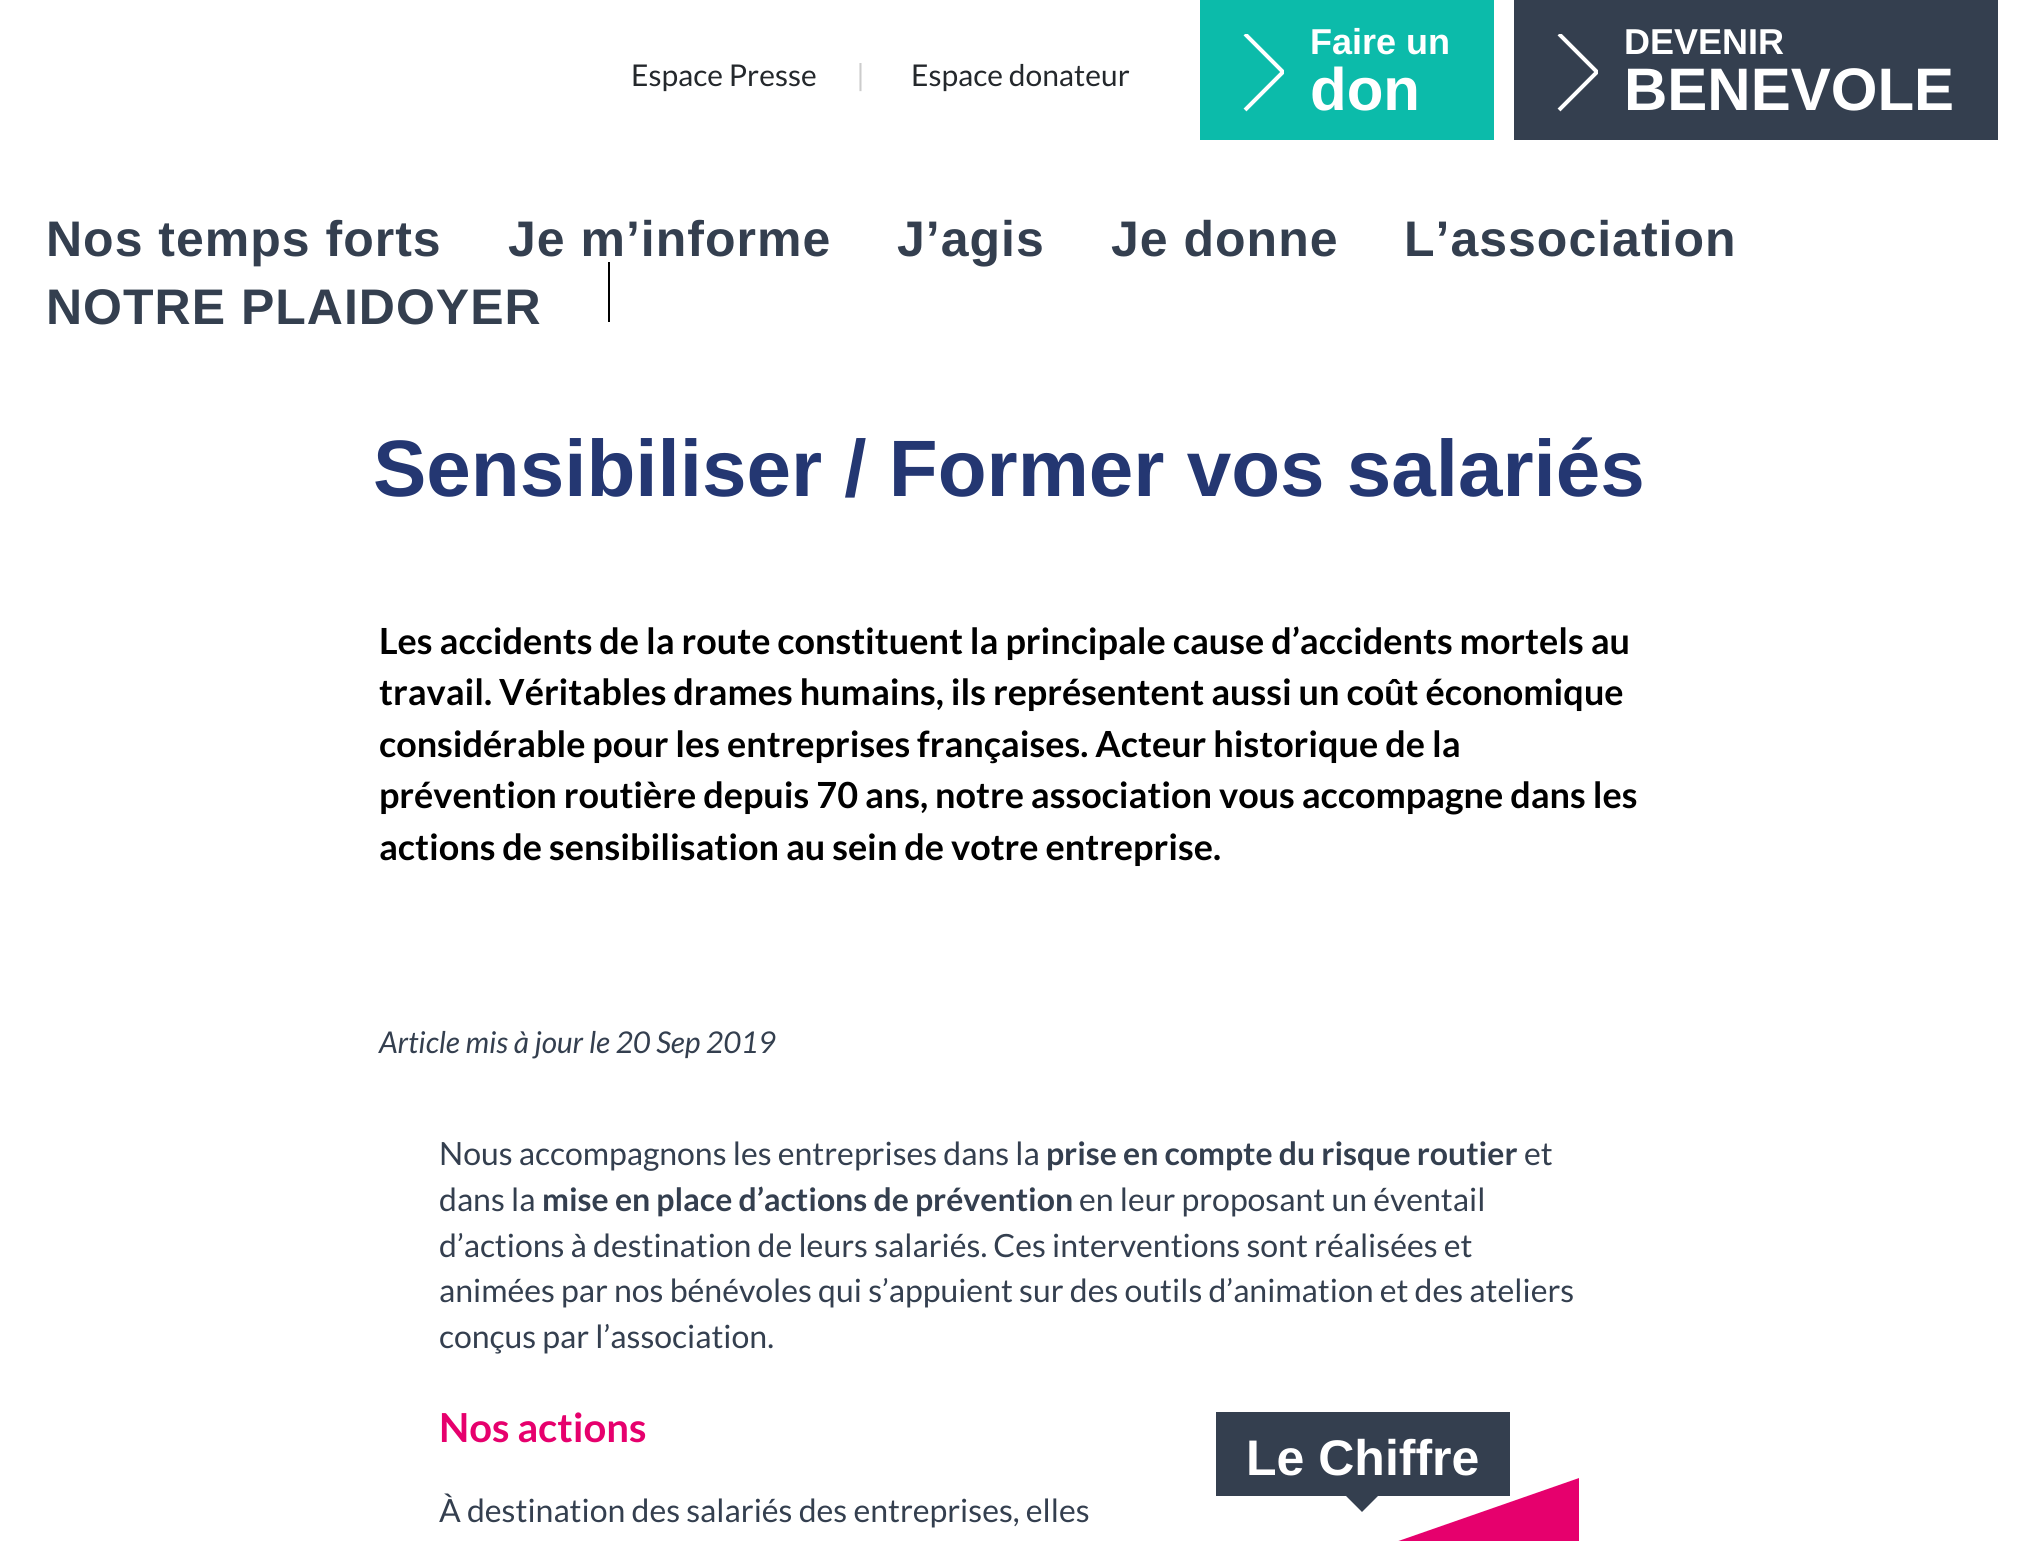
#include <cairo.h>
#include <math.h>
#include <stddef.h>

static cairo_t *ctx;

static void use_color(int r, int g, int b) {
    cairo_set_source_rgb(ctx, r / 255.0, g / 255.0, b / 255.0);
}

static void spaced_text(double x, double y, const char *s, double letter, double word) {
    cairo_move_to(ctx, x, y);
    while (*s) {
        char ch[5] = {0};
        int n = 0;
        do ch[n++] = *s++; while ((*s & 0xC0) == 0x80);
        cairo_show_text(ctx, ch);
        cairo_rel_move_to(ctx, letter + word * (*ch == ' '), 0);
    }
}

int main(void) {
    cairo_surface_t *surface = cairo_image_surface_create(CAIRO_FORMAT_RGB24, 2018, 1541);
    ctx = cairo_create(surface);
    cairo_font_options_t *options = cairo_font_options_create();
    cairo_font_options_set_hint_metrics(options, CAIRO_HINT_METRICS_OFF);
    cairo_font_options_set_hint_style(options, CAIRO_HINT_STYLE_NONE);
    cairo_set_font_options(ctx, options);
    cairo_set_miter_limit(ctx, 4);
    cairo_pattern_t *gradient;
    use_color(255, 255, 255);
    cairo_paint(ctx);
    cairo_select_font_face(ctx, "Lato", CAIRO_FONT_SLANT_NORMAL, CAIRO_FONT_WEIGHT_NORMAL);
    cairo_set_font_size(ctx, 30);
    use_color(36, 40, 44);
    cairo_move_to(ctx, 631, 86);
    cairo_show_text(ctx, "Espace Presse");
    use_color(204, 204, 204);
    cairo_move_to(ctx, 856, 86);
    cairo_show_text(ctx, "|");
    use_color(36, 40, 44);
    cairo_move_to(ctx, 911, 86);
    cairo_show_text(ctx, "Espace donateur");
    use_color(12, 187, 170);
    cairo_rectangle(ctx, 1200, 0, 294, 140);
    cairo_fill(ctx);
    cairo_save(ctx);
    cairo_rectangle(ctx, 1240, 34, 44, 86);
    cairo_clip(ctx);
    cairo_new_path(ctx);
    cairo_move_to(ctx, 1245, 34);
    cairo_line_to(ctx, 1283, 72);
    cairo_line_to(ctx, 1245, 110);
    use_color(255, 255, 255);
    cairo_set_line_width(ctx, 4);
    cairo_stroke(ctx);
    cairo_restore(ctx);
    cairo_select_font_face(ctx, "Liberation Sans", CAIRO_FONT_SLANT_NORMAL, CAIRO_FONT_WEIGHT_BOLD);
    cairo_set_font_size(ctx, 36);
    use_color(255, 255, 255);
    cairo_move_to(ctx, 1310, 54);
    cairo_show_text(ctx, "Faire un");
    cairo_set_font_size(ctx, 60);
    cairo_move_to(ctx, 1310, 110);
    cairo_show_text(ctx, "don");
    use_color(52, 63, 79);
    cairo_rectangle(ctx, 1514, 0, 484, 140);
    cairo_fill(ctx);
    cairo_save(ctx);
    cairo_rectangle(ctx, 1554, 34, 44, 86);
    cairo_clip(ctx);
    cairo_new_path(ctx);
    cairo_move_to(ctx, 1559, 34);
    cairo_line_to(ctx, 1597, 72);
    cairo_line_to(ctx, 1559, 110);
    use_color(255, 255, 255);
    cairo_set_line_width(ctx, 4);
    cairo_stroke(ctx);
    cairo_restore(ctx);
    cairo_set_font_size(ctx, 36);
    use_color(255, 255, 255);
    cairo_move_to(ctx, 1624, 54);
    cairo_show_text(ctx, "DEVENIR");
    cairo_set_font_size(ctx, 60);
    cairo_move_to(ctx, 1624, 110);
    cairo_show_text(ctx, "BENEVOLE");
    cairo_set_font_size(ctx, 50);
    use_color(52, 63, 79);
    spaced_text(46, 256, "Nos temps forts", 1, 0);
    spaced_text(508, 256, "Je m’informe", 1, 0);
    spaced_text(897, 256, "J’agis", 1, 0);
    spaced_text(1111, 256, "Je donne", 1, 0);
    spaced_text(1404, 256, "L’association", 1, 0);
    spaced_text(46, 324, "NOTRE PLAIDOYER", 1, 0);
    use_color(0, 0, 0);
    cairo_rectangle(ctx, 608, 262, 2, 60);
    cairo_fill(ctx);
    cairo_set_font_size(ctx, 80);
    use_color(36, 55, 114);
    cairo_move_to(ctx, 373, 496);
    cairo_show_text(ctx, "Sensibiliser / Former vos salariés");
    cairo_select_font_face(ctx, "Lato", CAIRO_FONT_SLANT_NORMAL, CAIRO_FONT_WEIGHT_BOLD);
    cairo_set_font_size(ctx, 36);
    use_color(0, 0, 0);
    cairo_move_to(ctx, 379, 654);
    cairo_show_text(ctx, "Les accidents de la route constituent la principale cause d’accidents mortels au");
    cairo_move_to(ctx, 379, 705);
    cairo_show_text(ctx, "travail. Véritables drames humains, ils représentent aussi un coût économique");
    cairo_move_to(ctx, 379, 757);
    cairo_show_text(ctx, "considérable pour les entreprises françaises. Acteur historique de la");
    cairo_move_to(ctx, 379, 808);
    cairo_show_text(ctx, "prévention routière depuis 70 ans, notre association vous accompagne dans les");
    cairo_move_to(ctx, 379, 860);
    cairo_show_text(ctx, "actions de sensibilisation au sein de votre entreprise.");
    cairo_select_font_face(ctx, "Lato", CAIRO_FONT_SLANT_ITALIC, CAIRO_FONT_WEIGHT_NORMAL);
    cairo_set_font_size(ctx, 30);
    use_color(52, 63, 79);
    cairo_move_to(ctx, 379, 1053);
    cairo_show_text(ctx, "Article mis à jour le 20 Sep 2019");
    cairo_select_font_face(ctx, "Lato", CAIRO_FONT_SLANT_NORMAL, CAIRO_FONT_WEIGHT_NORMAL);
    cairo_set_font_size(ctx, 32);
    cairo_move_to(ctx, 439, 1165);
    cairo_show_text(ctx, "Nous accompagnons les entreprises dans la");
    cairo_select_font_face(ctx, "Lato", CAIRO_FONT_SLANT_NORMAL, CAIRO_FONT_WEIGHT_BOLD);
    cairo_move_to(ctx, 1046, 1165);
    cairo_show_text(ctx, "prise en compte du risque routier");
    cairo_select_font_face(ctx, "Lato", CAIRO_FONT_SLANT_NORMAL, CAIRO_FONT_WEIGHT_NORMAL);
    cairo_move_to(ctx, 1524, 1165);
    cairo_show_text(ctx, "et");
    cairo_move_to(ctx, 439, 1211);
    cairo_show_text(ctx, "dans la");
    cairo_select_font_face(ctx, "Lato", CAIRO_FONT_SLANT_NORMAL, CAIRO_FONT_WEIGHT_BOLD);
    cairo_move_to(ctx, 542, 1211);
    cairo_show_text(ctx, "mise en place d’actions de prévention");
    cairo_select_font_face(ctx, "Lato", CAIRO_FONT_SLANT_NORMAL, CAIRO_FONT_WEIGHT_NORMAL);
    cairo_move_to(ctx, 1079, 1211);
    cairo_show_text(ctx, "en leur proposant un éventail");
    cairo_move_to(ctx, 439, 1257);
    cairo_show_text(ctx, "d’actions à destination de leurs salariés. Ces interventions sont réalisées et");
    cairo_move_to(ctx, 439, 1302);
    cairo_show_text(ctx, "animées par nos bénévoles qui s’appuient sur des outils d’animation et des ateliers");
    cairo_move_to(ctx, 439, 1348);
    cairo_show_text(ctx, "conçus par l’association.");
    cairo_select_font_face(ctx, "Lato", CAIRO_FONT_SLANT_NORMAL, CAIRO_FONT_WEIGHT_BOLD);
    cairo_set_font_size(ctx, 40);
    use_color(230, 0, 109);
    cairo_move_to(ctx, 439, 1442);
    cairo_show_text(ctx, "Nos actions");
    cairo_new_path(ctx);
    cairo_move_to(ctx, 1146, 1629);
    cairo_line_to(ctx, 1146, 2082);
    cairo_line_to(ctx, 1579, 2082);
    cairo_line_to(ctx, 1579, 1478);
    cairo_fill(ctx);
    use_color(52, 63, 79);
    cairo_new_path(ctx);
    cairo_move_to(ctx, 1346, 1496);
    cairo_line_to(ctx, 1362, 1512);
    cairo_line_to(ctx, 1378, 1496);
    cairo_fill(ctx);
    gradient = cairo_pattern_create_linear(1363, 1512, 1363, 1412);
    cairo_pattern_add_color_stop_rgba(gradient, 0, 0, 0, 0, 0);
    cairo_pattern_add_color_stop_rgba(gradient, 0.16, 0.204, 0.247, 0.31, 0);
    cairo_pattern_add_color_stop_rgba(gradient, 0.16, 0.204, 0.247, 0.31, 1);
    cairo_set_source(ctx, gradient);
    cairo_pattern_destroy(gradient);
    cairo_rectangle(ctx, 1216, 1412, 294, 84);
    cairo_fill(ctx);
    cairo_select_font_face(ctx, "Liberation Sans", CAIRO_FONT_SLANT_NORMAL, CAIRO_FONT_WEIGHT_BOLD);
    cairo_set_font_size(ctx, 50);
    use_color(255, 255, 255);
    cairo_move_to(ctx, 1246, 1475);
    cairo_show_text(ctx, "Le Chiffre");
    cairo_select_font_face(ctx, "Lato", CAIRO_FONT_SLANT_NORMAL, CAIRO_FONT_WEIGHT_NORMAL);
    cairo_set_font_size(ctx, 32);
    use_color(52, 63, 79);
    cairo_move_to(ctx, 439, 1522);
    cairo_show_text(ctx, "À destination des salariés des entreprises, elles");
    cairo_surface_write_to_png(surface, "result.png");
    cairo_font_options_destroy(options);
    cairo_destroy(ctx);
    cairo_surface_destroy(surface);
    return 0;
}
